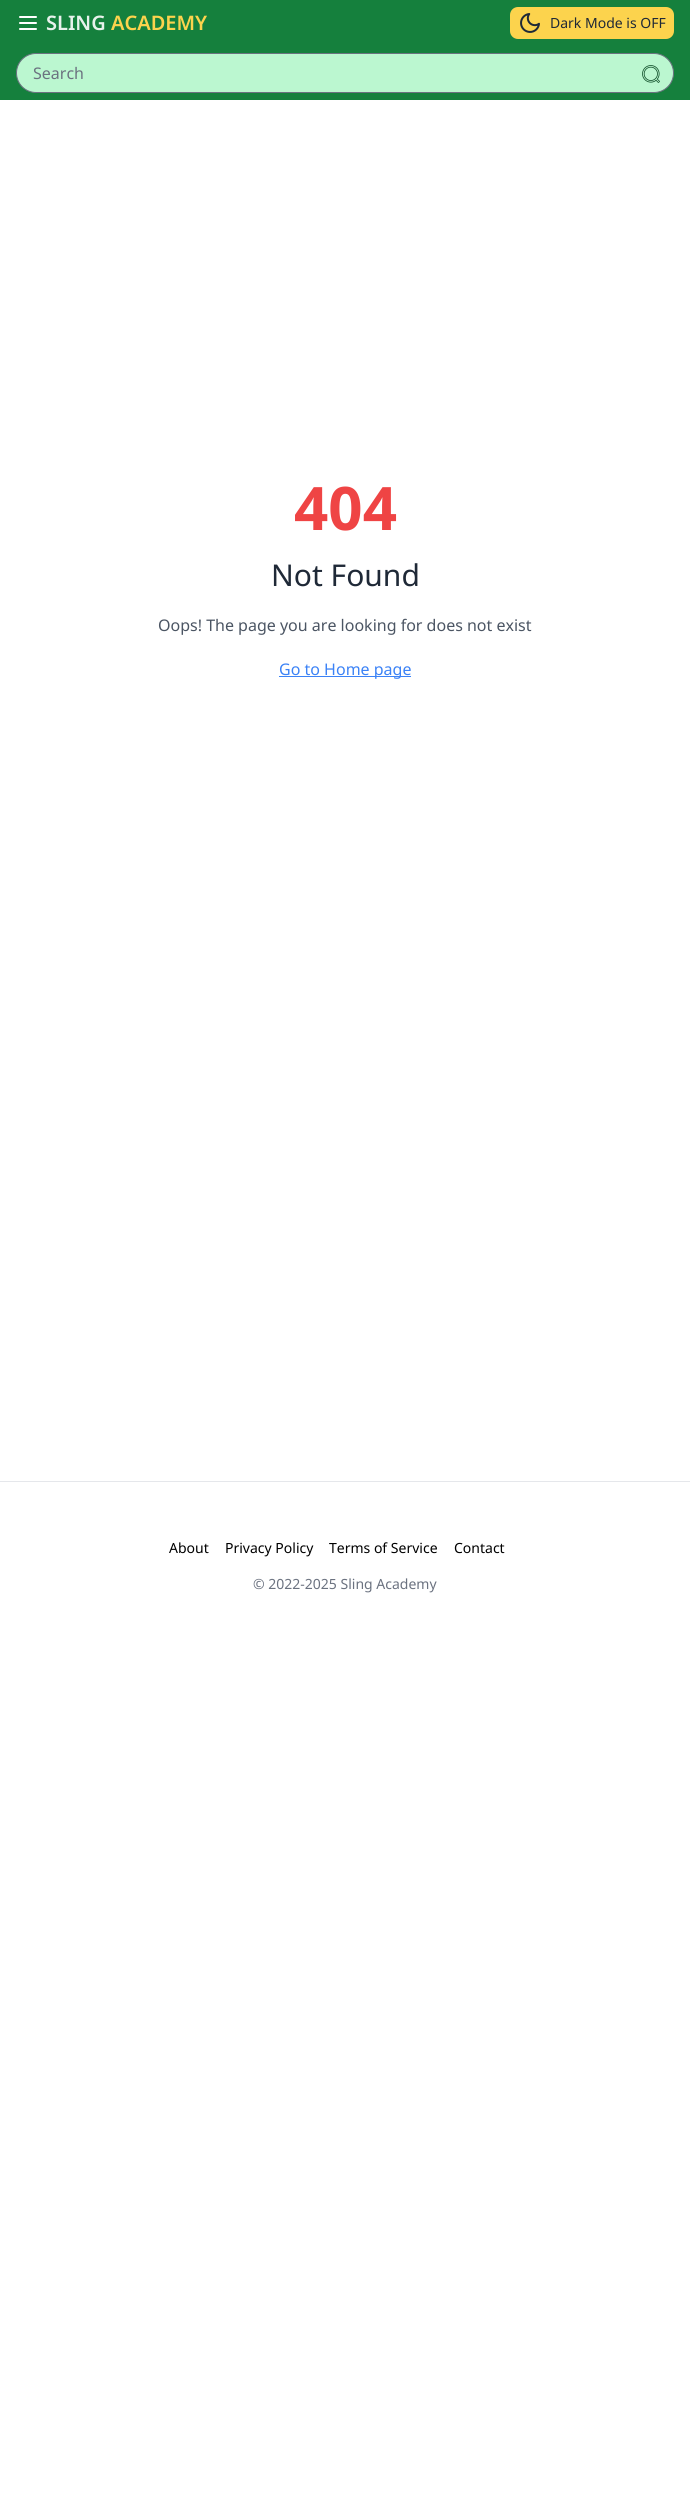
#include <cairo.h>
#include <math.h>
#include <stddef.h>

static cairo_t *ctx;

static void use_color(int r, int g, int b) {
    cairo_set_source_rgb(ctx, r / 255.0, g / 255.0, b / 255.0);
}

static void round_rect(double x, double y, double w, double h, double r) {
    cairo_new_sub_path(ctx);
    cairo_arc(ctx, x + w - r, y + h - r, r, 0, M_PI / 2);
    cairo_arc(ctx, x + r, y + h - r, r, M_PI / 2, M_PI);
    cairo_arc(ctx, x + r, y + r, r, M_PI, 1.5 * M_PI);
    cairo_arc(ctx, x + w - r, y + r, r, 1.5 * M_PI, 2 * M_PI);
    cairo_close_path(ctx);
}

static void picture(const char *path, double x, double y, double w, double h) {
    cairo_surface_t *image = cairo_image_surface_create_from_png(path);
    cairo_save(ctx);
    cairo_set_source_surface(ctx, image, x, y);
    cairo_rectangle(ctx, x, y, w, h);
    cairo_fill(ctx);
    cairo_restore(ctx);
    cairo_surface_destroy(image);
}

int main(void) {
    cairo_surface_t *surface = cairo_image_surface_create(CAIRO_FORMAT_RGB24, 690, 2510);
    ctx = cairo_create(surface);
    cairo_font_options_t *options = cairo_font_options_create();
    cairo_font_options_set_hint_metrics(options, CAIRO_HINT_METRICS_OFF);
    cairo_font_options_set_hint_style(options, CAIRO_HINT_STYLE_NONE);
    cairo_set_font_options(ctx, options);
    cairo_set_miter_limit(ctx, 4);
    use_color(255, 255, 255);
    cairo_paint(ctx);
    use_color(21, 128, 61);
    cairo_rectangle(ctx, 0, 0, 690, 100);
    cairo_fill(ctx);
    cairo_new_path(ctx);
    cairo_move_to(ctx, 20, 17);
    cairo_line_to(ctx, 36, 17);
    cairo_move_to(ctx, 20, 23);
    cairo_line_to(ctx, 36, 23);
    cairo_move_to(ctx, 20, 29);
    cairo_line_to(ctx, 36, 29);
    use_color(255, 255, 255);
    cairo_set_line_cap(ctx, CAIRO_LINE_CAP_ROUND);
    cairo_set_line_join(ctx, CAIRO_LINE_JOIN_ROUND);
    cairo_stroke(ctx);
    cairo_select_font_face(ctx, "Noto Sans SemiBold", CAIRO_FONT_SLANT_NORMAL, CAIRO_FONT_WEIGHT_NORMAL);
    cairo_set_font_size(ctx, 20);
    use_color(232, 242, 236);
    cairo_move_to(ctx, 46, 30);
    cairo_show_text(ctx, "SLING");
    use_color(252, 211, 77);
    cairo_move_to(ctx, 111, 30);
    cairo_show_text(ctx, "ACADEMY");
    round_rect(510, 7, 164, 32, 8);
    cairo_fill(ctx);
    picture("img1.png", 520, 13, 20, 20);
    cairo_select_font_face(ctx, "Noto Sans", CAIRO_FONT_SLANT_NORMAL, CAIRO_FONT_WEIGHT_NORMAL);
    cairo_set_font_size(ctx, 14);
    use_color(31, 41, 55);
    cairo_move_to(ctx, 550, 28);
    cairo_show_text(ctx, "Dark Mode is OFF");
    use_color(187, 247, 208);
    round_rect(16.5, 53.5, 657, 39, 19.5);
    cairo_fill_preserve(ctx);
    use_color(107, 114, 128);
    cairo_set_line_width(ctx, 1);
    cairo_set_line_cap(ctx, CAIRO_LINE_CAP_BUTT);
    cairo_set_line_join(ctx, CAIRO_LINE_JOIN_MITER);
    cairo_stroke(ctx);
    cairo_set_font_size(ctx, 16);
    cairo_move_to(ctx, 33, 79);
    cairo_show_text(ctx, "Search");
    picture("img2.png", 642, 65, 18, 18);
    cairo_select_font_face(ctx, "Noto Sans", CAIRO_FONT_SLANT_NORMAL, CAIRO_FONT_WEIGHT_BOLD);
    cairo_set_font_size(ctx, 60);
    use_color(239, 68, 68);
    cairo_move_to(ctx, 294, 530);
    cairo_show_text(ctx, "404");
    cairo_select_font_face(ctx, "Noto Sans", CAIRO_FONT_SLANT_NORMAL, CAIRO_FONT_WEIGHT_NORMAL);
    cairo_set_font_size(ctx, 30);
    use_color(31, 41, 55);
    cairo_move_to(ctx, 271, 586);
    cairo_show_text(ctx, "Not Found");
    cairo_set_font_size(ctx, 16);
    use_color(75, 85, 99);
    cairo_move_to(ctx, 158, 631);
    cairo_show_text(ctx, "Oops! The page you are looking for does not exist");
    use_color(59, 130, 246);
    cairo_rectangle(ctx, 279, 676, 132, 1);
    cairo_fill(ctx);
    cairo_move_to(ctx, 279, 675);
    cairo_show_text(ctx, "Go to Home page");
    use_color(229, 231, 235);
    cairo_rectangle(ctx, 0, 1481, 690, 1);
    cairo_fill(ctx);
    cairo_set_font_size(ctx, 14);
    use_color(0, 0, 0);
    cairo_move_to(ctx, 169, 1553);
    cairo_show_text(ctx, "About");
    cairo_move_to(ctx, 225, 1553);
    cairo_show_text(ctx, "Privacy Policy");
    cairo_move_to(ctx, 329, 1553);
    cairo_show_text(ctx, "Terms of Service");
    cairo_move_to(ctx, 454, 1553);
    cairo_show_text(ctx, "Contact");
    use_color(107, 114, 128);
    cairo_move_to(ctx, 253, 1589);
    cairo_show_text(ctx, "© 2022-2025 Sling Academy");
    cairo_surface_write_to_png(surface, "result.png");
    cairo_font_options_destroy(options);
    cairo_destroy(ctx);
    cairo_surface_destroy(surface);
    return 0;
}
